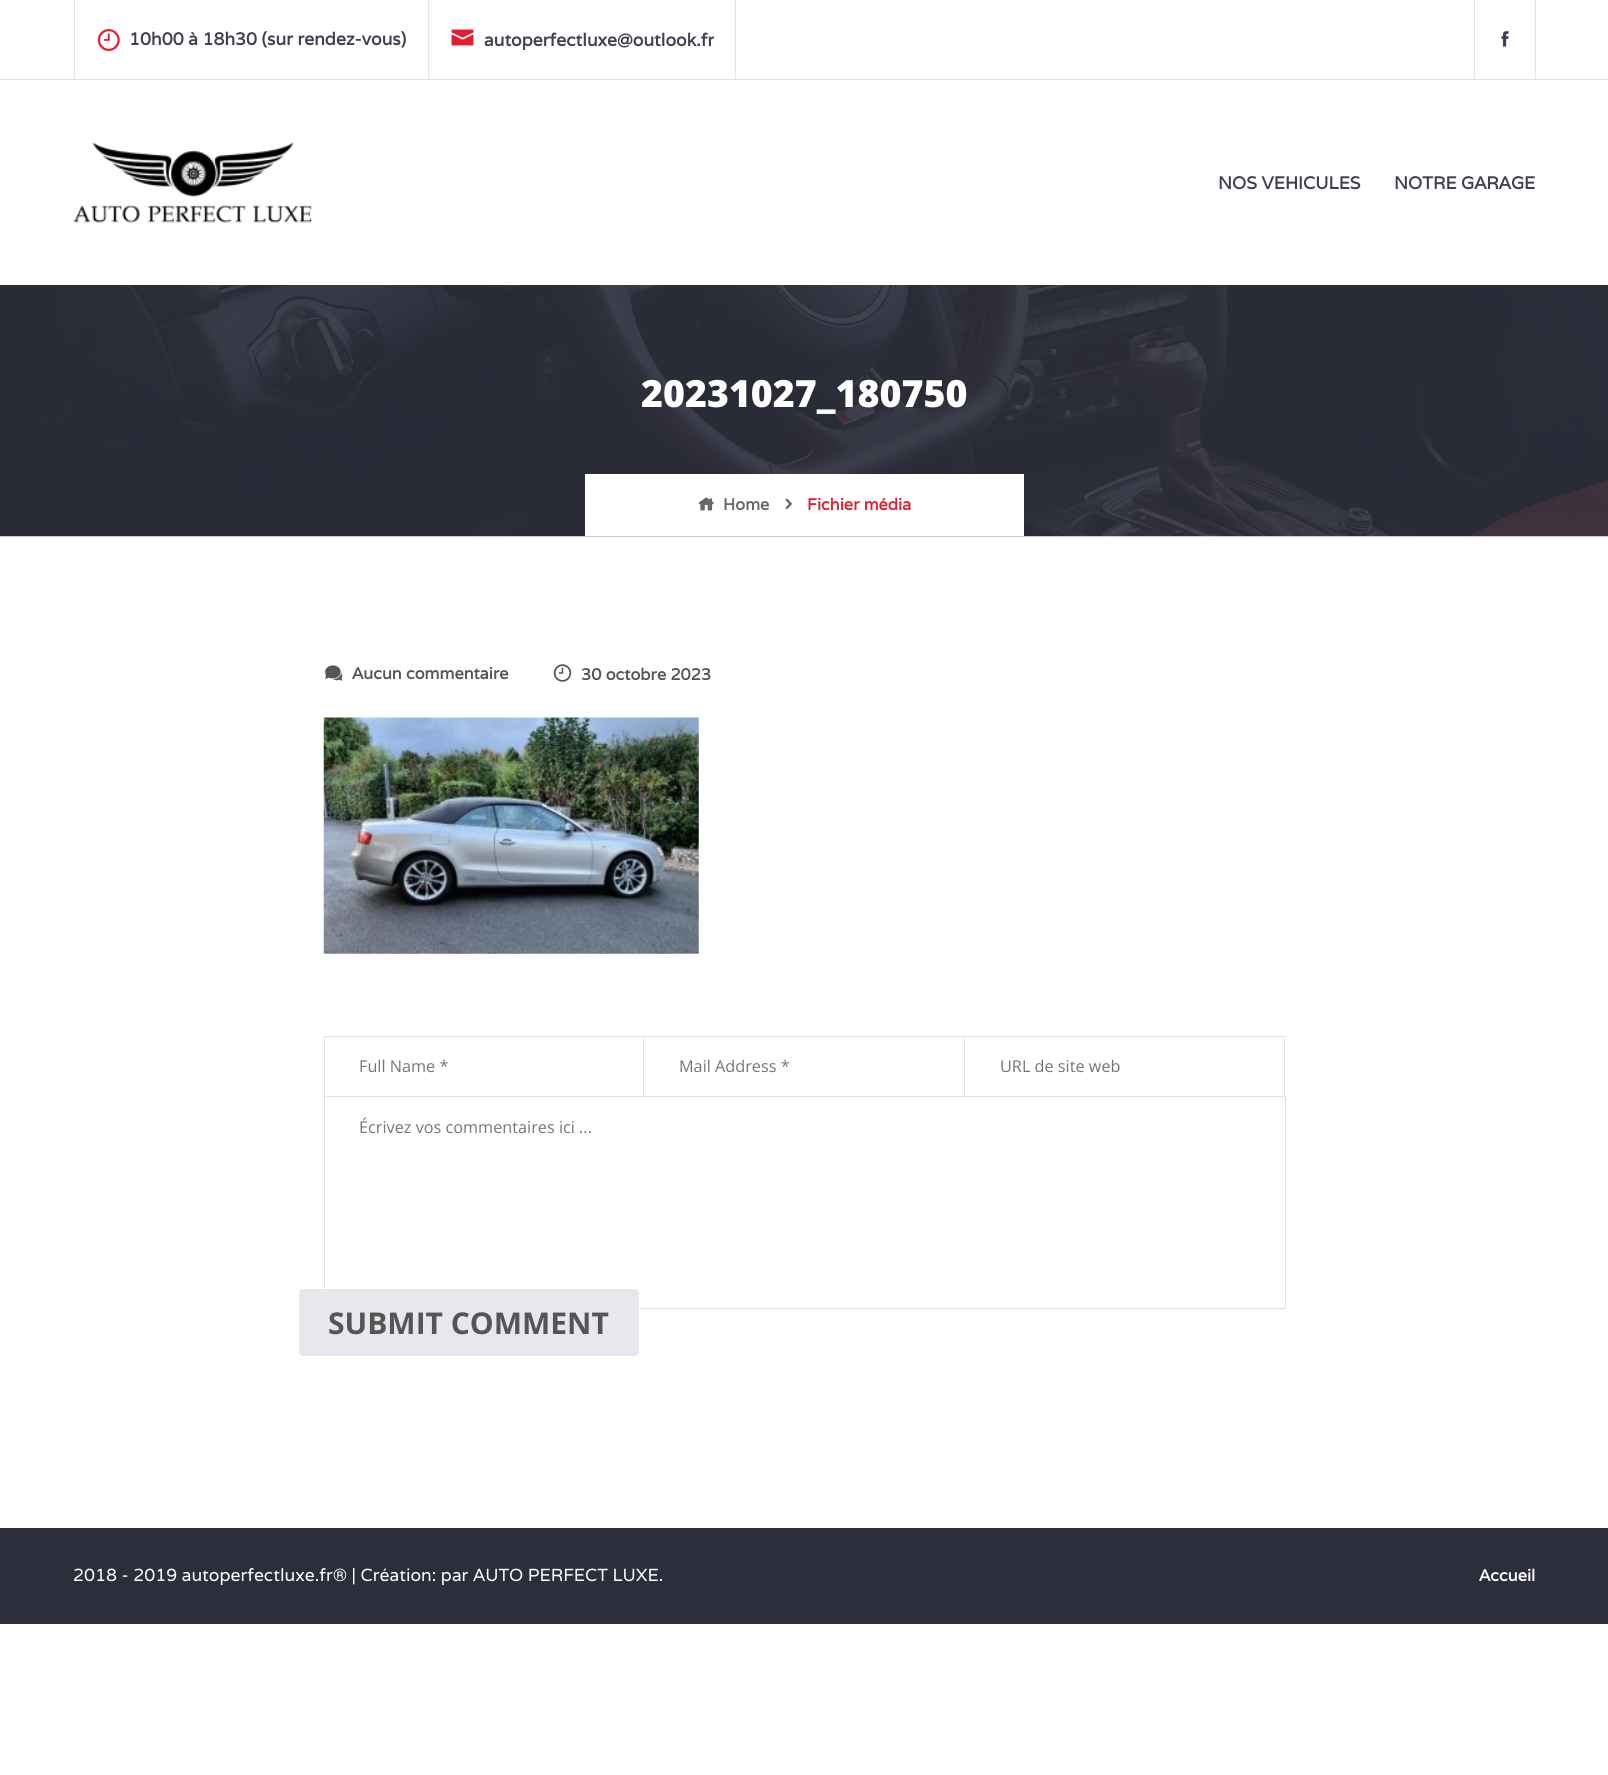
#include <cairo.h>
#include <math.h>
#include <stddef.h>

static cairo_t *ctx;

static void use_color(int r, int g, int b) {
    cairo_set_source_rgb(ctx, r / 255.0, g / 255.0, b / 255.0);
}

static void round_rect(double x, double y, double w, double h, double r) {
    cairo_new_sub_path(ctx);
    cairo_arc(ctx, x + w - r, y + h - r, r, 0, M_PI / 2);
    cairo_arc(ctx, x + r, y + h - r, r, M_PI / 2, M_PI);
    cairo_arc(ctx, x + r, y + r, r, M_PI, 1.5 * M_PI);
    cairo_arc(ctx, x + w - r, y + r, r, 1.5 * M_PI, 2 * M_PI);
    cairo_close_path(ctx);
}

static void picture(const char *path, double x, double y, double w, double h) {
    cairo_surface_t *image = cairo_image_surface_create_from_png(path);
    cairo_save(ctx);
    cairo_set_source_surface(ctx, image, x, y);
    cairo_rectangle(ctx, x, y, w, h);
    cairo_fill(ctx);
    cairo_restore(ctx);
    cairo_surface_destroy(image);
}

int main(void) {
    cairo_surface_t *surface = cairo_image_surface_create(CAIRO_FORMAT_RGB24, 1608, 1775);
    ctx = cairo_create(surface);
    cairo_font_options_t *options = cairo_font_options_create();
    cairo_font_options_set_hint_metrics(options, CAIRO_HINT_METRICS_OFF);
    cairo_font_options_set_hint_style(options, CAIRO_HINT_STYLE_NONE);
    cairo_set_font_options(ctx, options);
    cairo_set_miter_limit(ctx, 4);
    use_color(255, 255, 255);
    cairo_paint(ctx);
    use_color(228, 228, 228);
    cairo_rectangle(ctx, 0, 79, 1608, 1);
    cairo_fill(ctx);
    cairo_rectangle(ctx, 735, 0, 1, 79);
    cairo_fill(ctx);
    cairo_rectangle(ctx, 74, 0, 1, 79);
    cairo_fill(ctx);
    cairo_rectangle(ctx, 428, 0, 1, 79);
    cairo_fill(ctx);
    picture("img1.png", 97, 29, 23, 22);
    cairo_select_font_face(ctx, "Varela", CAIRO_FONT_SLANT_NORMAL, CAIRO_FONT_WEIGHT_BOLD);
    cairo_set_font_size(ctx, 17.5);
    use_color(61, 65, 78);
    cairo_move_to(ctx, 129, 45);
    cairo_show_text(ctx, "10h00 à 18h30 (sur rendez-vous)");
    picture("img2.png", 451, 29, 23, 17);
    cairo_move_to(ctx, 484, 46);
    cairo_show_text(ctx, "autoperfectluxe@outlook.fr");
    use_color(228, 228, 228);
    cairo_rectangle(ctx, 1535, 0, 1, 79);
    cairo_fill(ctx);
    cairo_rectangle(ctx, 1474, 0, 1, 79);
    cairo_fill(ctx);
    picture("img3.png", 1501, 31, 8, 16);
    picture("img4.png", 73, 142, 239, 81);
    use_color(61, 65, 78);
    cairo_move_to(ctx, 1218, 189);
    cairo_show_text(ctx, "NOS VEHICULES");
    cairo_move_to(ctx, 1394, 189);
    cairo_show_text(ctx, "NOTRE GARAGE");
    picture("img5.png", 0, 285, 1608, 252);
    cairo_select_font_face(ctx, "Open Sans ExtraBold", CAIRO_FONT_SLANT_NORMAL, CAIRO_FONT_WEIGHT_NORMAL);
    cairo_set_font_size(ctx, 37.5);
    use_color(255, 255, 255);
    cairo_move_to(ctx, 641, 407);
    cairo_show_text(ctx, "20231027_180750");
    cairo_rectangle(ctx, 585, 474, 439, 62);
    cairo_fill(ctx);
    picture("img6.png", 698, 497, 16, 14);
    cairo_select_font_face(ctx, "Varela", CAIRO_FONT_SLANT_NORMAL, CAIRO_FONT_WEIGHT_BOLD);
    cairo_set_font_size(ctx, 16.25);
    use_color(102, 102, 102);
    cairo_move_to(ctx, 723, 510);
    cairo_show_text(ctx, "Home");
    picture("img7.png", 785, 498, 7, 12);
    use_color(225, 30, 48);
    cairo_move_to(ctx, 807, 510);
    cairo_show_text(ctx, "Fichier média");
    picture("img8.png", 325, 665, 18, 16);
    use_color(85, 85, 85);
    cairo_move_to(ctx, 352, 679);
    cairo_show_text(ctx, "Aucun commentaire");
    picture("img9.png", 553, 664, 19, 18);
    cairo_move_to(ctx, 581, 680);
    cairo_show_text(ctx, "30 octobre 2023");
    picture("img10.png", 323, 717, 376, 237);
    use_color(226, 226, 226);
    cairo_rectangle(ctx, 324, 1036, 961, 1);
    cairo_fill(ctx);
    cairo_rectangle(ctx, 643, 1036, 1, 60);
    cairo_fill(ctx);
    cairo_rectangle(ctx, 324, 1036, 1, 60);
    cairo_fill(ctx);
    cairo_select_font_face(ctx, "Open Sans", CAIRO_FONT_SLANT_NORMAL, CAIRO_FONT_WEIGHT_NORMAL);
    use_color(117, 117, 117);
    cairo_move_to(ctx, 359, 1072);
    cairo_show_text(ctx, "Full Name *");
    use_color(226, 226, 226);
    cairo_rectangle(ctx, 964, 1036, 1, 60);
    cairo_fill(ctx);
    use_color(117, 117, 117);
    cairo_move_to(ctx, 679, 1072);
    cairo_show_text(ctx, "Mail Address *");
    use_color(226, 226, 226);
    cairo_rectangle(ctx, 1284, 1036, 1, 60);
    cairo_fill(ctx);
    use_color(117, 117, 117);
    cairo_move_to(ctx, 1000, 1072);
    cairo_show_text(ctx, "URL de site web");
    cairo_rectangle(ctx, 324.5, 1096.5, 961, 212);
    use_color(226, 226, 226);
    cairo_set_line_width(ctx, 1);
    cairo_stroke(ctx);
    use_color(117, 117, 117);
    cairo_move_to(ctx, 359, 1133);
    cairo_show_text(ctx, "Écrivez vos commentaires ici ...");
    use_color(233, 230, 237);
    round_rect(299, 1289, 340, 67, 4);
    cairo_fill(ctx);
    cairo_select_font_face(ctx, "Open Sans", CAIRO_FONT_SLANT_NORMAL, CAIRO_FONT_WEIGHT_BOLD);
    cairo_set_font_size(ctx, 30);
    use_color(85, 85, 85);
    cairo_move_to(ctx, 328, 1334);
    cairo_show_text(ctx, "SUBMIT COMMENT");
    use_color(44, 46, 59);
    cairo_rectangle(ctx, 0, 1528, 1608, 96);
    cairo_fill(ctx);
    cairo_select_font_face(ctx, "Varela", CAIRO_FONT_SLANT_NORMAL, CAIRO_FONT_WEIGHT_NORMAL);
    cairo_set_font_size(ctx, 17.5);
    use_color(255, 255, 255);
    cairo_move_to(ctx, 73, 1581);
    cairo_show_text(ctx, "2018 - 2019 autoperfectluxe.fr® | Création: par AUTO PERFECT LUXE.");
    cairo_select_font_face(ctx, "Varela", CAIRO_FONT_SLANT_NORMAL, CAIRO_FONT_WEIGHT_BOLD);
    cairo_set_font_size(ctx, 16.25);
    cairo_move_to(ctx, 1479, 1581);
    cairo_show_text(ctx, "Accueil");
    cairo_surface_write_to_png(surface, "result.png");
    cairo_font_options_destroy(options);
    cairo_destroy(ctx);
    cairo_surface_destroy(surface);
    return 0;
}
